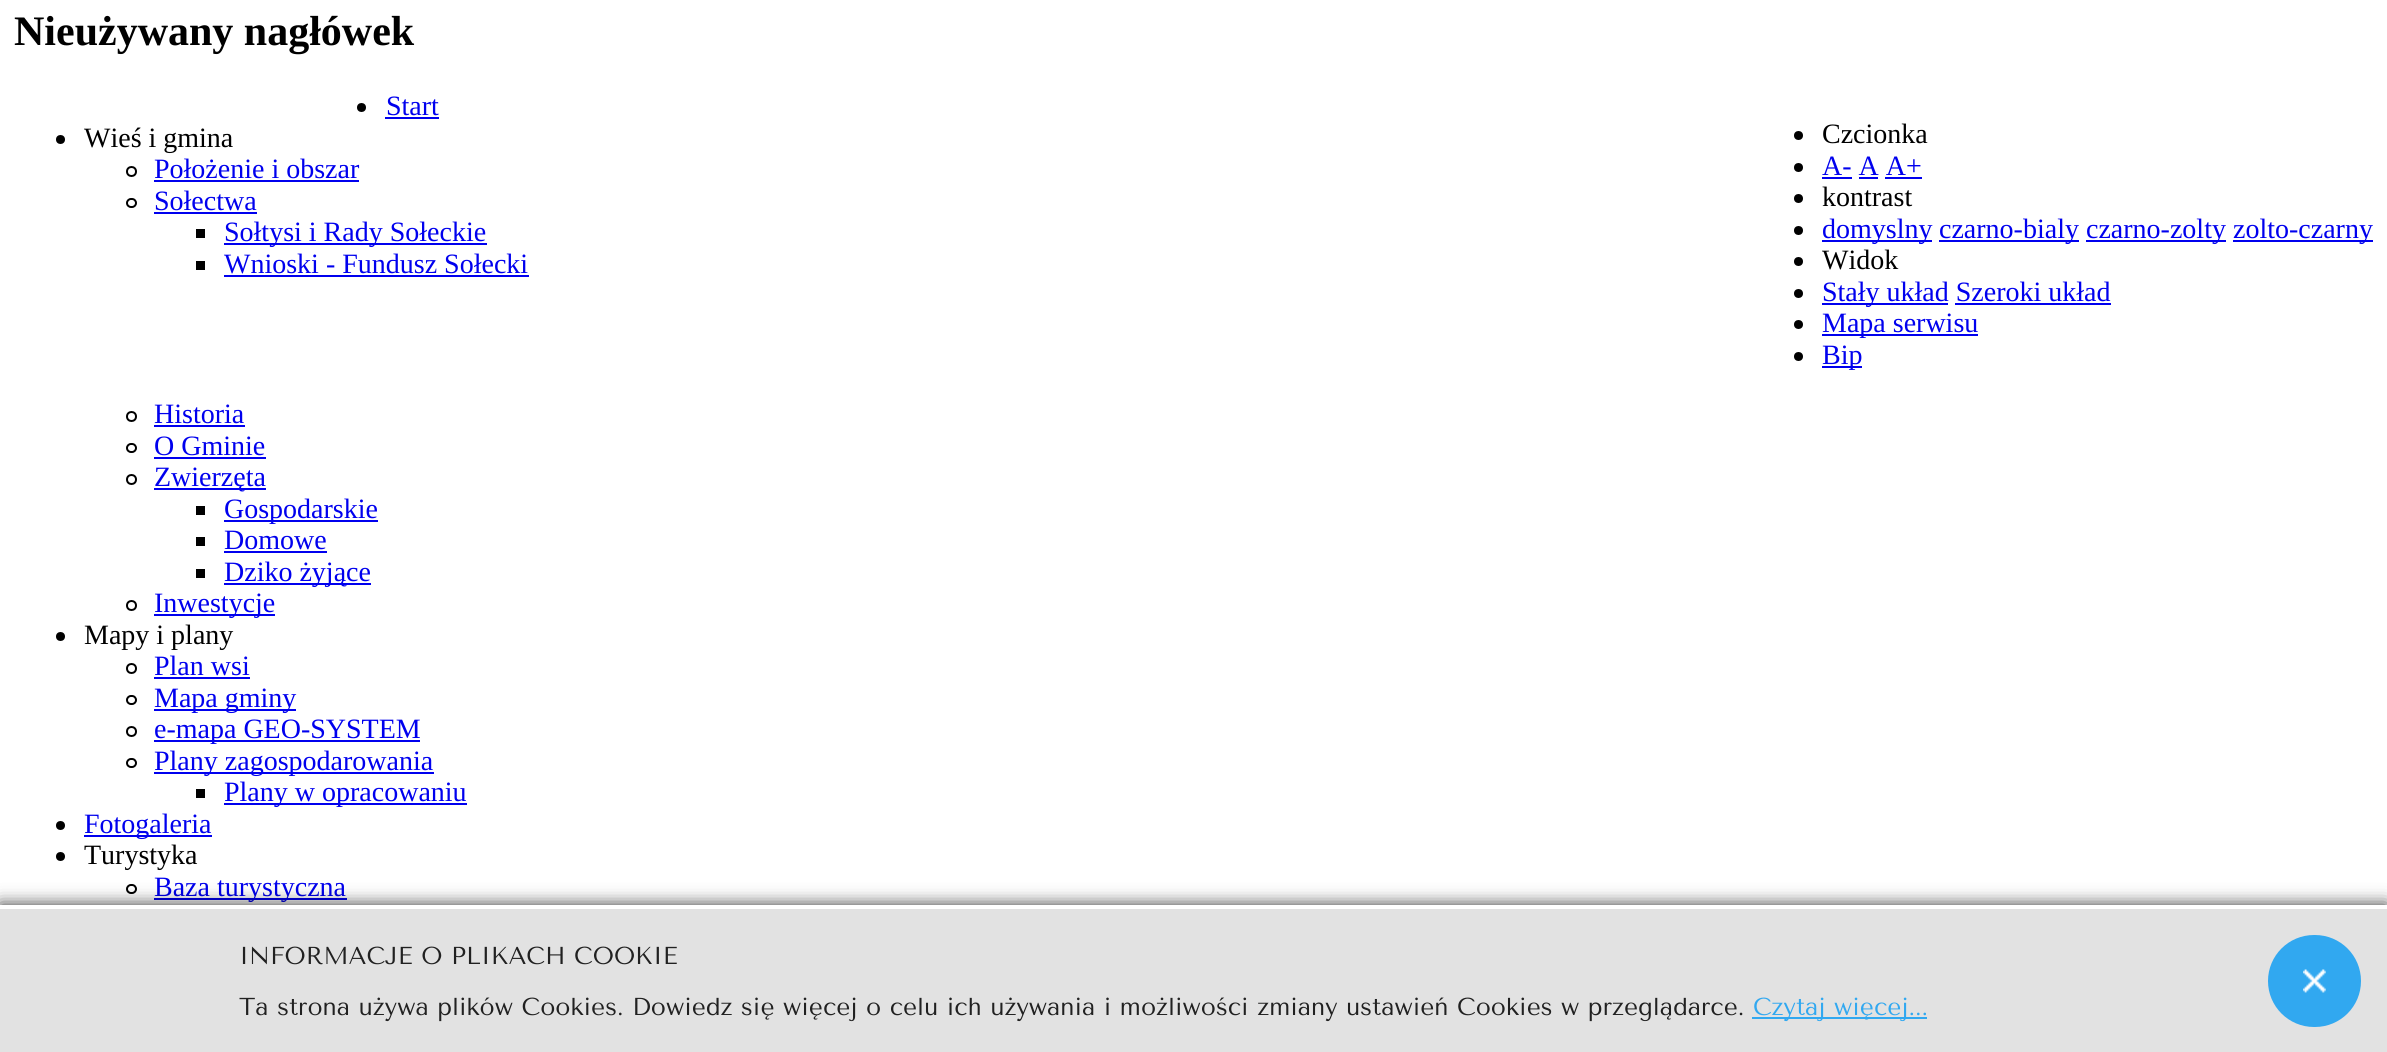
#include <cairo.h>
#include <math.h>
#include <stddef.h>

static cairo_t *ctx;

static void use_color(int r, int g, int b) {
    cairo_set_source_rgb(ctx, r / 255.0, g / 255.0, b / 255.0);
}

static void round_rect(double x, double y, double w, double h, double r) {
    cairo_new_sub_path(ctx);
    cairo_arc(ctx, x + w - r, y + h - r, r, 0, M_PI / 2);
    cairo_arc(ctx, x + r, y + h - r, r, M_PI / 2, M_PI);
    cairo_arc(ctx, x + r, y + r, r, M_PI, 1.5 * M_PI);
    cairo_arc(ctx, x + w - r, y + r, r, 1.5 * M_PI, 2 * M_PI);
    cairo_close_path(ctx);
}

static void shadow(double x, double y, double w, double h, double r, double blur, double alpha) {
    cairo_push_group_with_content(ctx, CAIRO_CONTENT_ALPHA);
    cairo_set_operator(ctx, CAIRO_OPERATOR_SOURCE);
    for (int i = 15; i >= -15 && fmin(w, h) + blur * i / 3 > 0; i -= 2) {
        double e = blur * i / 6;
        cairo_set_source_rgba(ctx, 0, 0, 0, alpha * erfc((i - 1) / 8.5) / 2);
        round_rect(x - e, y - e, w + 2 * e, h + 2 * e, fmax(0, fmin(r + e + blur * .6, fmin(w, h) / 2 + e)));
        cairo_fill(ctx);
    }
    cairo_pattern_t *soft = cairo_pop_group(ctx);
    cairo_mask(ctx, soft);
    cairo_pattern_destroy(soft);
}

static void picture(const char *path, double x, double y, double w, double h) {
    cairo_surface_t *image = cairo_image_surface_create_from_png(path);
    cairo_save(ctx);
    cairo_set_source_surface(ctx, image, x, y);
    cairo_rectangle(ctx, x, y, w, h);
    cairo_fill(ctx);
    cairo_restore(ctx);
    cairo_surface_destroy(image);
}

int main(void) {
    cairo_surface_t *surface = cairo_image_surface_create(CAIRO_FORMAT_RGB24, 2387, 1052);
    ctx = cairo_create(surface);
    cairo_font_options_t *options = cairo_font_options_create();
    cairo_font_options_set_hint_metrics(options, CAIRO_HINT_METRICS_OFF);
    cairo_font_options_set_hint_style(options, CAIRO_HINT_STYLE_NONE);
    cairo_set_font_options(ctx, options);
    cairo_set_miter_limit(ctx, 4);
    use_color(255, 255, 255);
    cairo_paint(ctx);
    cairo_select_font_face(ctx, "Liberation Serif", CAIRO_FONT_SLANT_NORMAL, CAIRO_FONT_WEIGHT_BOLD);
    cairo_set_font_size(ctx, 42);
    use_color(0, 0, 0);
    cairo_move_to(ctx, 14, 45);
    cairo_show_text(ctx, "Nieużywany nagłówek");
    cairo_new_path(ctx);
    cairo_arc(ctx, 361.5, 107.5, 4.5, 0, 2 * M_PI);
    cairo_fill(ctx);
    cairo_select_font_face(ctx, "Liberation Serif", CAIRO_FONT_SLANT_NORMAL, CAIRO_FONT_WEIGHT_NORMAL);
    cairo_set_font_size(ctx, 28);
    use_color(0, 0, 238);
    cairo_move_to(ctx, 386, 115);
    cairo_show_text(ctx, "Start");
    cairo_rectangle(ctx, 385, 117, 54, 2);
    cairo_fill(ctx);
    use_color(0, 0, 0);
    cairo_arc(ctx, 60.5, 139.5, 4.5, 0, 2 * M_PI);
    cairo_fill(ctx);
    cairo_move_to(ctx, 84, 147);
    cairo_show_text(ctx, "Wieś i gmina");
    cairo_new_path(ctx);
    cairo_arc(ctx, 131.5, 171.5, 4.5, 0, 2 * M_PI);
    cairo_stroke(ctx);
    use_color(0, 0, 238);
    cairo_move_to(ctx, 154, 178);
    cairo_show_text(ctx, "Położenie i obszar");
    cairo_rectangle(ctx, 154, 180, 205, 2);
    cairo_fill(ctx);
    round_rect(127, 199, 9, 8, 4);
    use_color(0, 0, 0);
    cairo_stroke(ctx);
    use_color(0, 0, 238);
    cairo_move_to(ctx, 154, 210);
    cairo_show_text(ctx, "Sołectwa");
    cairo_rectangle(ctx, 154, 212, 103, 2);
    cairo_fill(ctx);
    use_color(0, 0, 0);
    cairo_rectangle(ctx, 196, 229, 9, 9);
    cairo_fill(ctx);
    use_color(0, 0, 238);
    cairo_rectangle(ctx, 224, 243, 263, 2);
    cairo_fill(ctx);
    cairo_move_to(ctx, 224, 241);
    cairo_show_text(ctx, "Sołtysi i Rady Sołeckie");
    use_color(0, 0, 0);
    cairo_rectangle(ctx, 196, 261, 9, 9);
    cairo_fill(ctx);
    use_color(0, 0, 238);
    cairo_move_to(ctx, 224, 273);
    cairo_show_text(ctx, "Wnioski - Fundusz Sołecki");
    cairo_rectangle(ctx, 224, 275, 305, 2);
    cairo_fill(ctx);
    cairo_arc(ctx, 131.5, 416.5, 4.5, 0, 2 * M_PI);
    use_color(0, 0, 0);
    cairo_stroke(ctx);
    use_color(0, 0, 238);
    cairo_move_to(ctx, 154, 423);
    cairo_show_text(ctx, "Historia");
    cairo_rectangle(ctx, 154, 425, 91, 2);
    cairo_fill(ctx);
    round_rect(127, 444, 9, 8, 4);
    use_color(0, 0, 0);
    cairo_stroke(ctx);
    use_color(0, 0, 238);
    cairo_move_to(ctx, 154, 455);
    cairo_show_text(ctx, "O Gminie");
    cairo_rectangle(ctx, 154, 457, 112, 2);
    cairo_fill(ctx);
    cairo_arc(ctx, 131.5, 479.5, 4.5, 0, 2 * M_PI);
    use_color(0, 0, 0);
    cairo_stroke(ctx);
    use_color(0, 0, 238);
    cairo_rectangle(ctx, 154, 488, 112, 2);
    cairo_fill(ctx);
    cairo_move_to(ctx, 154, 486);
    cairo_show_text(ctx, "Zwierzęta");
    use_color(0, 0, 0);
    cairo_rectangle(ctx, 196, 506, 9, 9);
    cairo_fill(ctx);
    use_color(0, 0, 238);
    cairo_rectangle(ctx, 224, 520, 154, 2);
    cairo_fill(ctx);
    cairo_move_to(ctx, 224, 518);
    cairo_show_text(ctx, "Gospodarskie");
    use_color(0, 0, 0);
    cairo_rectangle(ctx, 196, 537, 9, 9);
    cairo_fill(ctx);
    use_color(0, 0, 238);
    cairo_move_to(ctx, 224, 549);
    cairo_show_text(ctx, "Domowe");
    cairo_rectangle(ctx, 224, 551, 103, 2);
    cairo_fill(ctx);
    use_color(0, 0, 0);
    cairo_rectangle(ctx, 196, 569, 9, 9);
    cairo_fill(ctx);
    use_color(0, 0, 238);
    cairo_rectangle(ctx, 224, 583, 147, 2);
    cairo_fill(ctx);
    cairo_move_to(ctx, 224, 581);
    cairo_show_text(ctx, "Dziko żyjące");
    cairo_new_path(ctx);
    cairo_arc(ctx, 131.5, 605.5, 4.5, 0, 2 * M_PI);
    use_color(0, 0, 0);
    cairo_stroke(ctx);
    use_color(0, 0, 238);
    cairo_rectangle(ctx, 154, 614, 121, 2);
    cairo_fill(ctx);
    cairo_move_to(ctx, 154, 612);
    cairo_show_text(ctx, "Inwestycje");
    use_color(0, 0, 0);
    cairo_new_path(ctx);
    cairo_arc(ctx, 60.5, 636.5, 4.5, 0, 2 * M_PI);
    cairo_fill(ctx);
    cairo_move_to(ctx, 84, 644);
    cairo_show_text(ctx, "Mapy i plany");
    cairo_new_path(ctx);
    cairo_arc(ctx, 131.5, 668.5, 4.5, 0, 2 * M_PI);
    cairo_stroke(ctx);
    use_color(0, 0, 238);
    cairo_move_to(ctx, 154, 675);
    cairo_show_text(ctx, "Plan wsi");
    cairo_rectangle(ctx, 154, 677, 96, 2);
    cairo_fill(ctx);
    round_rect(127, 696, 9, 8, 4);
    use_color(0, 0, 0);
    cairo_stroke(ctx);
    use_color(0, 0, 238);
    cairo_rectangle(ctx, 154, 709, 142, 2);
    cairo_fill(ctx);
    cairo_move_to(ctx, 154, 707);
    cairo_show_text(ctx, "Mapa gminy");
    cairo_new_path(ctx);
    cairo_arc(ctx, 131.5, 731.5, 4.5, 0, 2 * M_PI);
    use_color(0, 0, 0);
    cairo_stroke(ctx);
    use_color(0, 0, 238);
    cairo_rectangle(ctx, 154, 740, 266, 2);
    cairo_fill(ctx);
    cairo_move_to(ctx, 154, 738);
    cairo_show_text(ctx, "e-mapa GEO-SYSTEM");
    round_rect(127, 759, 9, 8, 4);
    use_color(0, 0, 0);
    cairo_stroke(ctx);
    use_color(0, 0, 238);
    cairo_rectangle(ctx, 154, 772, 280, 2);
    cairo_fill(ctx);
    cairo_move_to(ctx, 154, 770);
    cairo_show_text(ctx, "Plany zagospodarowania");
    use_color(0, 0, 0);
    cairo_rectangle(ctx, 196, 789, 9, 9);
    cairo_fill(ctx);
    use_color(0, 0, 238);
    cairo_rectangle(ctx, 224, 803, 243, 2);
    cairo_fill(ctx);
    cairo_move_to(ctx, 224, 801);
    cairo_show_text(ctx, "Plany w opracowaniu");
    use_color(0, 0, 0);
    cairo_new_path(ctx);
    cairo_arc(ctx, 60.5, 825.5, 4.5, 0, 2 * M_PI);
    cairo_fill(ctx);
    use_color(0, 0, 238);
    cairo_rectangle(ctx, 84, 835, 128, 2);
    cairo_fill(ctx);
    cairo_move_to(ctx, 84, 833);
    cairo_show_text(ctx, "Fotogaleria");
    use_color(0, 0, 0);
    cairo_new_path(ctx);
    cairo_arc(ctx, 60.5, 856.5, 4.5, 0, 2 * M_PI);
    cairo_fill(ctx);
    cairo_move_to(ctx, 84, 864);
    cairo_show_text(ctx, "Turystyka");
    round_rect(127, 885, 9, 8, 4);
    cairo_stroke(ctx);
    use_color(0, 0, 238);
    cairo_rectangle(ctx, 154, 898, 193, 2);
    cairo_fill(ctx);
    cairo_move_to(ctx, 154, 896);
    cairo_show_text(ctx, "Baza turystyczna");
    use_color(0, 0, 0);
    cairo_new_path(ctx);
    cairo_arc(ctx, 1798.5, 135.5, 4.5, 0, 2 * M_PI);
    cairo_fill(ctx);
    cairo_move_to(ctx, 1822, 143);
    cairo_show_text(ctx, "Czcionka");
    cairo_new_path(ctx);
    cairo_arc(ctx, 1798.5, 167.5, 4.5, 0, 2 * M_PI);
    cairo_fill(ctx);
    use_color(0, 0, 238);
    cairo_move_to(ctx, 1822, 175);
    cairo_show_text(ctx, "A- A A+");
    cairo_rectangle(ctx, 1822, 177, 30, 2);
    cairo_fill(ctx);
    cairo_rectangle(ctx, 1859, 177, 19, 2);
    cairo_fill(ctx);
    cairo_rectangle(ctx, 1885, 177, 37, 2);
    cairo_fill(ctx);
    use_color(0, 0, 0);
    cairo_arc(ctx, 1798.5, 198.5, 4.5, 0, 2 * M_PI);
    cairo_fill(ctx);
    cairo_move_to(ctx, 1822, 206);
    cairo_show_text(ctx, "kontrast");
    cairo_new_path(ctx);
    cairo_arc(ctx, 1798.5, 230.5, 4.5, 0, 2 * M_PI);
    cairo_fill(ctx);
    use_color(0, 0, 238);
    cairo_rectangle(ctx, 1822, 240, 110, 2);
    cairo_fill(ctx);
    cairo_move_to(ctx, 1822, 238);
    cairo_show_text(ctx, "domyslny");
    cairo_rectangle(ctx, 1939, 240, 140, 2);
    cairo_fill(ctx);
    cairo_move_to(ctx, 1939, 238);
    cairo_show_text(ctx, "czarno-bialy");
    cairo_rectangle(ctx, 2086, 240, 140, 2);
    cairo_fill(ctx);
    cairo_move_to(ctx, 2086, 238);
    cairo_show_text(ctx, "czarno-zolty");
    cairo_rectangle(ctx, 2233, 240, 140, 2);
    cairo_fill(ctx);
    cairo_move_to(ctx, 2233, 238);
    cairo_show_text(ctx, "zolto-czarny");
    use_color(0, 0, 0);
    cairo_new_path(ctx);
    cairo_arc(ctx, 1798.5, 261.5, 4.5, 0, 2 * M_PI);
    cairo_fill(ctx);
    cairo_move_to(ctx, 1822, 269);
    cairo_show_text(ctx, "Widok");
    cairo_new_path(ctx);
    cairo_arc(ctx, 1798.5, 293.5, 4.5, 0, 2 * M_PI);
    cairo_fill(ctx);
    use_color(0, 0, 238);
    cairo_rectangle(ctx, 1822, 303, 126, 2);
    cairo_fill(ctx);
    cairo_move_to(ctx, 1822, 301);
    cairo_show_text(ctx, "Stały układ Szeroki układ");
    cairo_rectangle(ctx, 1955, 303, 156, 2);
    cairo_fill(ctx);
    use_color(0, 0, 0);
    cairo_arc(ctx, 1798.5, 324.5, 4.5, 0, 2 * M_PI);
    cairo_fill(ctx);
    use_color(0, 0, 238);
    cairo_rectangle(ctx, 1822, 334, 156, 2);
    cairo_fill(ctx);
    cairo_move_to(ctx, 1822, 332);
    cairo_show_text(ctx, "Mapa serwisu");
    use_color(0, 0, 0);
    cairo_new_path(ctx);
    cairo_arc(ctx, 1798.5, 356.5, 4.5, 0, 2 * M_PI);
    cairo_fill(ctx);
    use_color(0, 0, 238);
    cairo_rectangle(ctx, 1822, 366, 40, 2);
    cairo_fill(ctx);
    cairo_move_to(ctx, 1822, 364);
    cairo_show_text(ctx, "Bip");
    use_color(0, 0, 0);
    shadow(0, 905, 2387, 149, 0, 9, 0.8);
    use_color(226, 226, 226);
    cairo_rectangle(ctx, 0, 909, 2387, 143);
    cairo_fill(ctx);
    use_color(255, 255, 255);
    cairo_rectangle(ctx, 0, 905, 2387, 4);
    cairo_fill(ctx);
    cairo_select_font_face(ctx, "Tenor Sans", CAIRO_FONT_SLANT_NORMAL, CAIRO_FONT_WEIGHT_NORMAL);
    cairo_set_font_size(ctx, 24.5);
    use_color(33, 33, 33);
    cairo_move_to(ctx, 239, 964);
    cairo_show_text(ctx, "INFORMACJE O PLIKACH COOKIE");
    cairo_move_to(ctx, 239, 1015);
    cairo_show_text(ctx, "Ta strona używa plików Cookies. Dowiedz się więcej o celu ich używania i możliwości zmiany ustawień Cookies w przeglądarce.");
    use_color(49, 168, 240);
    cairo_rectangle(ctx, 1752, 1017, 175, 2);
    cairo_fill(ctx);
    cairo_move_to(ctx, 1753, 1015);
    cairo_show_text(ctx, "Czytaj więcej...");
    round_rect(2268, 935, 93, 92, 46);
    cairo_fill(ctx);
    picture("img1.png", 2303, 969, 23, 24);
    cairo_surface_write_to_png(surface, "result.png");
    cairo_font_options_destroy(options);
    cairo_destroy(ctx);
    cairo_surface_destroy(surface);
    return 0;
}
